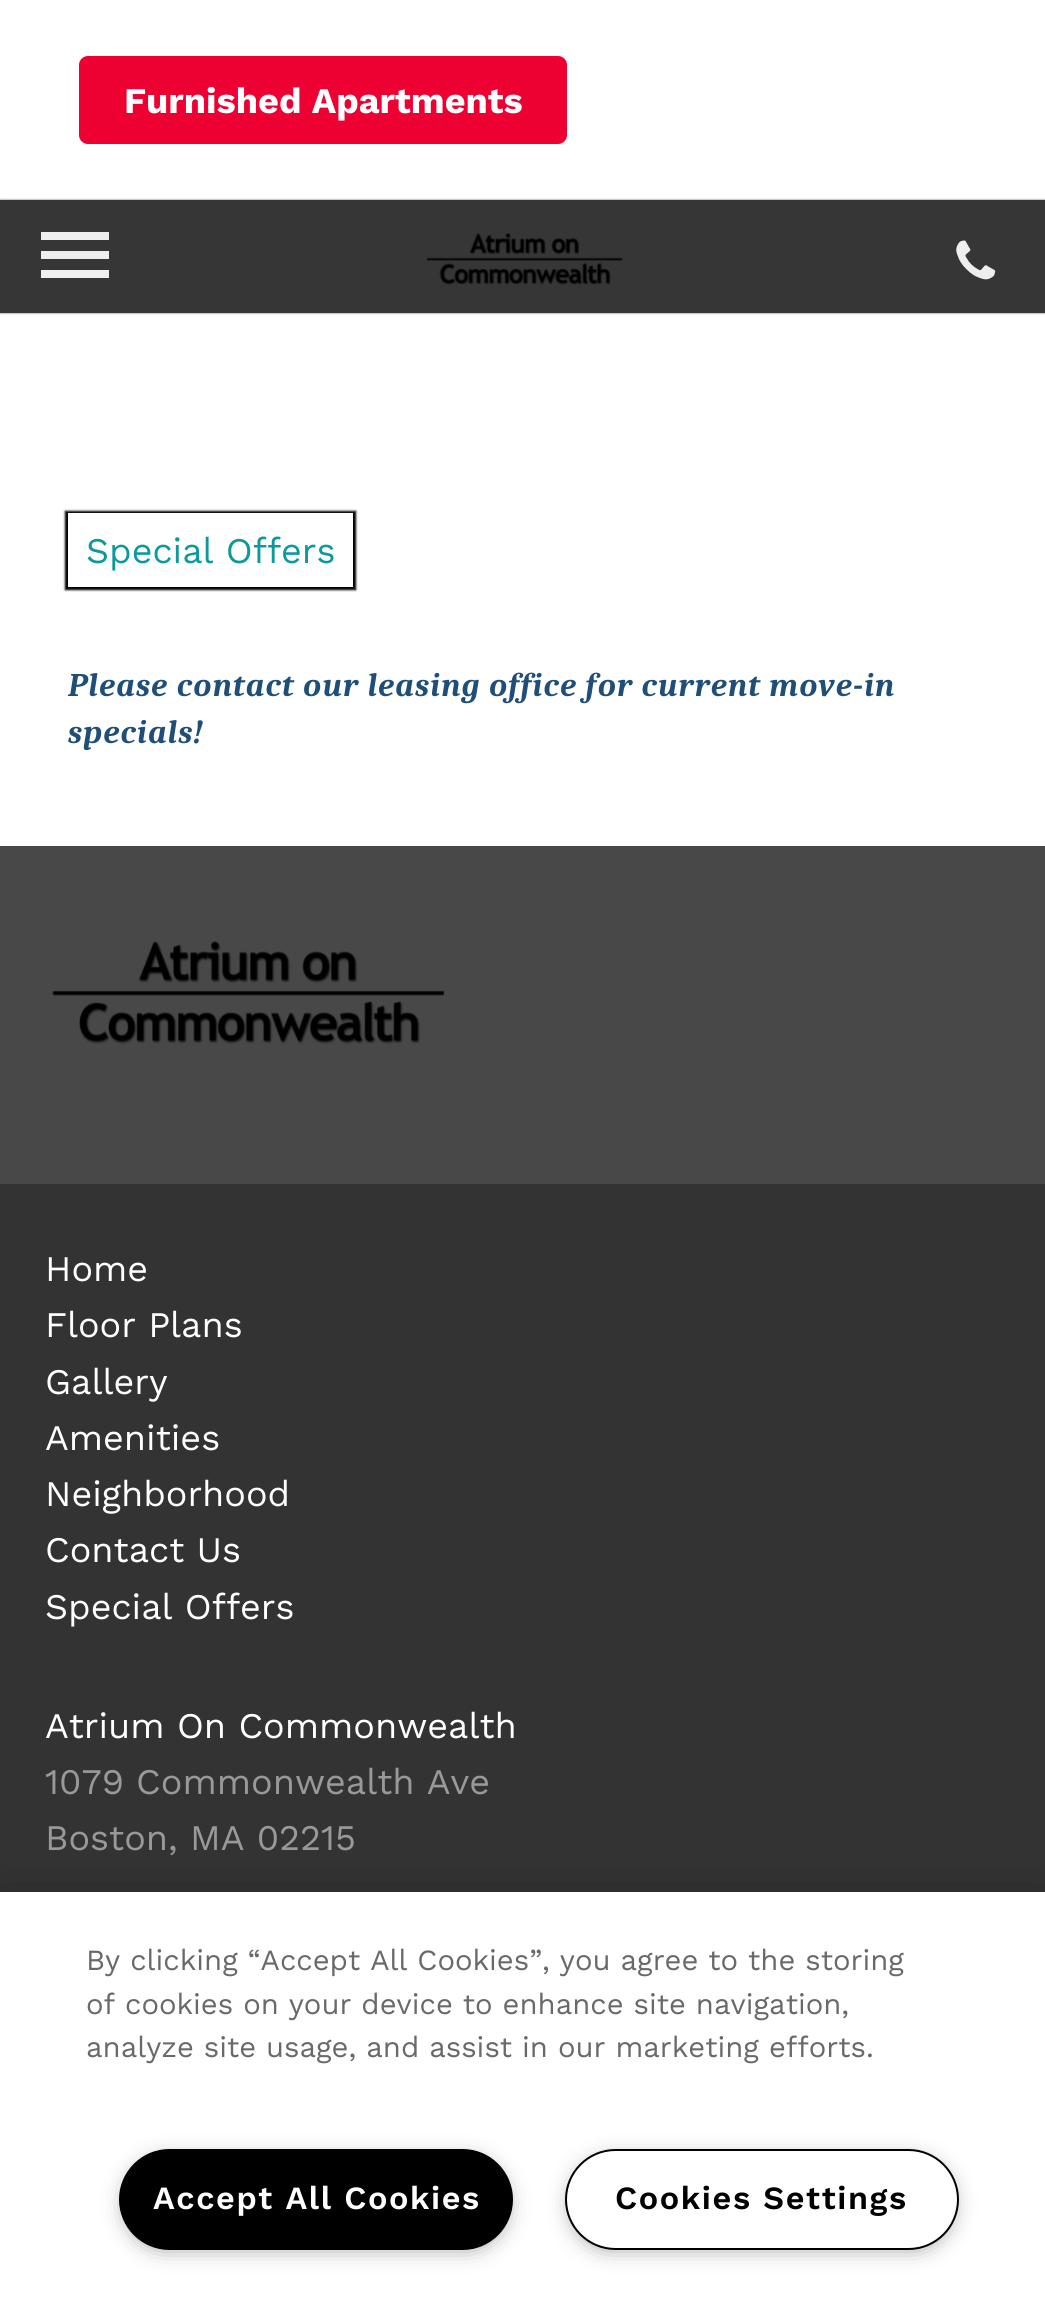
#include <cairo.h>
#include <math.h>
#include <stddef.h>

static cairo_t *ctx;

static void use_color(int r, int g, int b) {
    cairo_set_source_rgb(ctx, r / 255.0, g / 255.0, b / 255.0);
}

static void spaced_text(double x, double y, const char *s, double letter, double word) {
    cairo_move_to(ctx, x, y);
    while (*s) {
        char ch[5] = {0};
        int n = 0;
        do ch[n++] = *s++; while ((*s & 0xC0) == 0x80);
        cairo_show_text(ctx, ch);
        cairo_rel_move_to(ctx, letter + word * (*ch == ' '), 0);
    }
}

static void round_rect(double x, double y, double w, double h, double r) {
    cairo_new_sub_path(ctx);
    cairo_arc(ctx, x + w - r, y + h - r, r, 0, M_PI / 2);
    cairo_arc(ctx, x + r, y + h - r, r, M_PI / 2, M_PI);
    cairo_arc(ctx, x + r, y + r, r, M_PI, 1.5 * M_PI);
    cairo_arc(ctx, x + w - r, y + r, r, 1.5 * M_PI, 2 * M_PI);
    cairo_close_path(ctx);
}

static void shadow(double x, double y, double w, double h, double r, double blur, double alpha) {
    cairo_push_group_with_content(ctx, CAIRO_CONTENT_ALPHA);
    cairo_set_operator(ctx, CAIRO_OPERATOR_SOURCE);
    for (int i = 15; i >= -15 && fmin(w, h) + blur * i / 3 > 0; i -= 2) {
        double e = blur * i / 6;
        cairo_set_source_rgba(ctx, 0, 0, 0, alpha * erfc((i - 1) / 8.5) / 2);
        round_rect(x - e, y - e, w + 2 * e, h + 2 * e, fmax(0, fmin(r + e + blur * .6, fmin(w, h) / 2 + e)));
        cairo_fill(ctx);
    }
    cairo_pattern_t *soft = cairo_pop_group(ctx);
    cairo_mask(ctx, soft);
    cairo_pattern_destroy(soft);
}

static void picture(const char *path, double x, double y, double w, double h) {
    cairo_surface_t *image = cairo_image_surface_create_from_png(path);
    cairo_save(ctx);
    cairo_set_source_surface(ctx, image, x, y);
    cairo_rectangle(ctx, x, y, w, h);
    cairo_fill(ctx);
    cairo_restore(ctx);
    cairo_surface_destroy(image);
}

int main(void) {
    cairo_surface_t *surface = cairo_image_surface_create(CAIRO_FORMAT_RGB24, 1045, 2308);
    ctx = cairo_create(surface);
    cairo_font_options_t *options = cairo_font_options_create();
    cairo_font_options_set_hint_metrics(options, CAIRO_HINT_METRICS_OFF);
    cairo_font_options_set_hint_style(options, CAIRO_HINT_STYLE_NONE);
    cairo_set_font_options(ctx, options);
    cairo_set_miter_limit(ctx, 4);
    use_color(255, 255, 255);
    cairo_paint(ctx);
    use_color(237, 0, 50);
    round_rect(79, 56, 488, 88, 9);
    cairo_fill(ctx);
    cairo_select_font_face(ctx, "Work Sans", CAIRO_FONT_SLANT_NORMAL, CAIRO_FONT_WEIGHT_BOLD);
    cairo_set_font_size(ctx, 36);
    use_color(255, 255, 255);
    cairo_move_to(ctx, 124, 113);
    cairo_show_text(ctx, "Furnished Apartments");
    cairo_save(ctx);
    cairo_set_fill_rule(ctx, CAIRO_FILL_RULE_EVEN_ODD);
    cairo_new_path(ctx);
    cairo_move_to(ctx, 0, 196);
    cairo_line_to(ctx, 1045, 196);
    cairo_line_to(ctx, 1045, 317);
    cairo_line_to(ctx, 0, 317);
    cairo_close_path(ctx);
    cairo_move_to(ctx, 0, 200);
    cairo_line_to(ctx, 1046, 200);
    cairo_line_to(ctx, 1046, 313);
    cairo_line_to(ctx, 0, 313);
    cairo_close_path(ctx);
    cairo_clip(ctx);
    use_color(102, 102, 102);
    shadow(0, 200, 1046, 113, 0, 1, 1);
    cairo_restore(ctx);
    cairo_set_source_rgba(ctx, 0.129, 0.129, 0.129, 0.9);
    cairo_rectangle(ctx, 0, 200, 1045, 113);
    cairo_fill(ctx);
    use_color(238, 238, 238);
    cairo_new_path(ctx);
    cairo_move_to(ctx, 41, 278);
    cairo_line_to(ctx, 109, 278);
    cairo_line_to(ctx, 109, 270);
    cairo_line_to(ctx, 41, 270);
    cairo_close_path(ctx);
    cairo_move_to(ctx, 41, 259);
    cairo_line_to(ctx, 109, 259);
    cairo_line_to(ctx, 109, 251);
    cairo_line_to(ctx, 41, 251);
    cairo_close_path(ctx);
    cairo_move_to(ctx, 41, 232);
    cairo_line_to(ctx, 41, 240);
    cairo_line_to(ctx, 109, 240);
    cairo_line_to(ctx, 109, 232);
    cairo_close_path(ctx);
    cairo_fill(ctx);
    picture("img1.png", 426, 233, 197, 52);
    picture("img2.png", 956, 240, 40, 40);
    cairo_save(ctx);
    cairo_set_fill_rule(ctx, CAIRO_FILL_RULE_EVEN_ODD);
    cairo_new_path(ctx);
    cairo_move_to(ctx, 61, 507);
    cairo_line_to(ctx, 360, 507);
    cairo_line_to(ctx, 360, 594);
    cairo_line_to(ctx, 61, 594);
    cairo_close_path(ctx);
    cairo_move_to(ctx, 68, 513);
    cairo_line_to(ctx, 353, 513);
    cairo_line_to(ctx, 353, 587);
    cairo_line_to(ctx, 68, 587);
    cairo_close_path(ctx);
    cairo_clip(ctx);
    use_color(0, 0, 0);
    shadow(65, 511, 291, 79, 0, 1, 1);
    cairo_restore(ctx);
    cairo_select_font_face(ctx, "Work Sans", CAIRO_FONT_SLANT_NORMAL, CAIRO_FONT_WEIGHT_NORMAL);
    use_color(12, 153, 157);
    cairo_move_to(ctx, 86, 563);
    cairo_show_text(ctx, "Special Offers");
    cairo_select_font_face(ctx, "Caladea", CAIRO_FONT_SLANT_ITALIC, CAIRO_FONT_WEIGHT_BOLD);
    cairo_set_font_size(ctx, 33);
    use_color(31, 78, 121);
    spaced_text(68, 696, "Please contact our leasing office for current move-in", 1.12, 0);
    spaced_text(68, 743, "specials!", 1.12, 0);
    use_color(72, 72, 72);
    cairo_rectangle(ctx, 0, 846, 1045, 338);
    cairo_fill(ctx);
    picture("img3.png", 52, 941, 393, 103);
    use_color(51, 51, 51);
    cairo_rectangle(ctx, 0, 1184, 1045, 708);
    cairo_fill(ctx);
    cairo_select_font_face(ctx, "Work Sans", CAIRO_FONT_SLANT_NORMAL, CAIRO_FONT_WEIGHT_NORMAL);
    cairo_set_font_size(ctx, 36);
    use_color(255, 255, 255);
    cairo_move_to(ctx, 45, 1281);
    cairo_show_text(ctx, "Home");
    cairo_move_to(ctx, 45, 1337);
    cairo_show_text(ctx, "Floor Plans");
    cairo_move_to(ctx, 45, 1394);
    cairo_show_text(ctx, "Gallery");
    cairo_move_to(ctx, 45, 1450);
    cairo_show_text(ctx, "Amenities");
    cairo_move_to(ctx, 45, 1506);
    cairo_show_text(ctx, "Neighborhood");
    cairo_move_to(ctx, 45, 1562);
    cairo_show_text(ctx, "Contact Us");
    cairo_move_to(ctx, 45, 1619);
    cairo_show_text(ctx, "Special Offers");
    cairo_move_to(ctx, 45, 1738);
    cairo_show_text(ctx, "Atrium On Commonwealth");
    use_color(153, 153, 153);
    cairo_move_to(ctx, 45, 1794);
    cairo_show_text(ctx, "1079 Commonwealth Ave");
    cairo_move_to(ctx, 45, 1850);
    cairo_show_text(ctx, "Boston, MA 02215");
    use_color(0, 0, 0);
    shadow(0, 1892, 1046, 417, 0, 20, 0.2);
    use_color(255, 255, 255);
    cairo_rectangle(ctx, 0, 1892, 1045, 416);
    cairo_fill(ctx);
    cairo_set_font_size(ctx, 29.25);
    use_color(105, 105, 105);
    cairo_move_to(ctx, 86, 1970);
    cairo_show_text(ctx, "By clicking “Accept All Cookies”, you agree to the storing");
    cairo_move_to(ctx, 86, 2014);
    cairo_show_text(ctx, "of cookies on your device to enhance site navigation,");
    cairo_move_to(ctx, 86, 2057);
    cairo_show_text(ctx, "analyze site usage, and assist in our marketing efforts.");
    use_color(153, 153, 153);
    shadow(126, 2160, 380, 88, 44, 11, 1);
    use_color(0, 0, 0);
    round_rect(120, 2150, 392, 99, 49.5);
    cairo_fill_preserve(ctx);
    cairo_stroke(ctx);
    cairo_select_font_face(ctx, "Work Sans SemiBold", CAIRO_FONT_SLANT_NORMAL, CAIRO_FONT_WEIGHT_NORMAL);
    cairo_set_font_size(ctx, 32.4);
    use_color(255, 255, 255);
    spaced_text(153, 2209, "Accept All Cookies", 1.6, 0);
    use_color(153, 153, 153);
    shadow(572, 2160, 380, 88, 44, 11, 1);
    use_color(255, 255, 255);
    round_rect(566, 2150, 392, 99, 49.5);
    cairo_fill_preserve(ctx);
    use_color(0, 0, 0);
    cairo_stroke(ctx);
    spaced_text(615, 2209, "Cookies Settings", 1.6, 0);
    cairo_surface_write_to_png(surface, "result.png");
    cairo_font_options_destroy(options);
    cairo_destroy(ctx);
    cairo_surface_destroy(surface);
    return 0;
}
